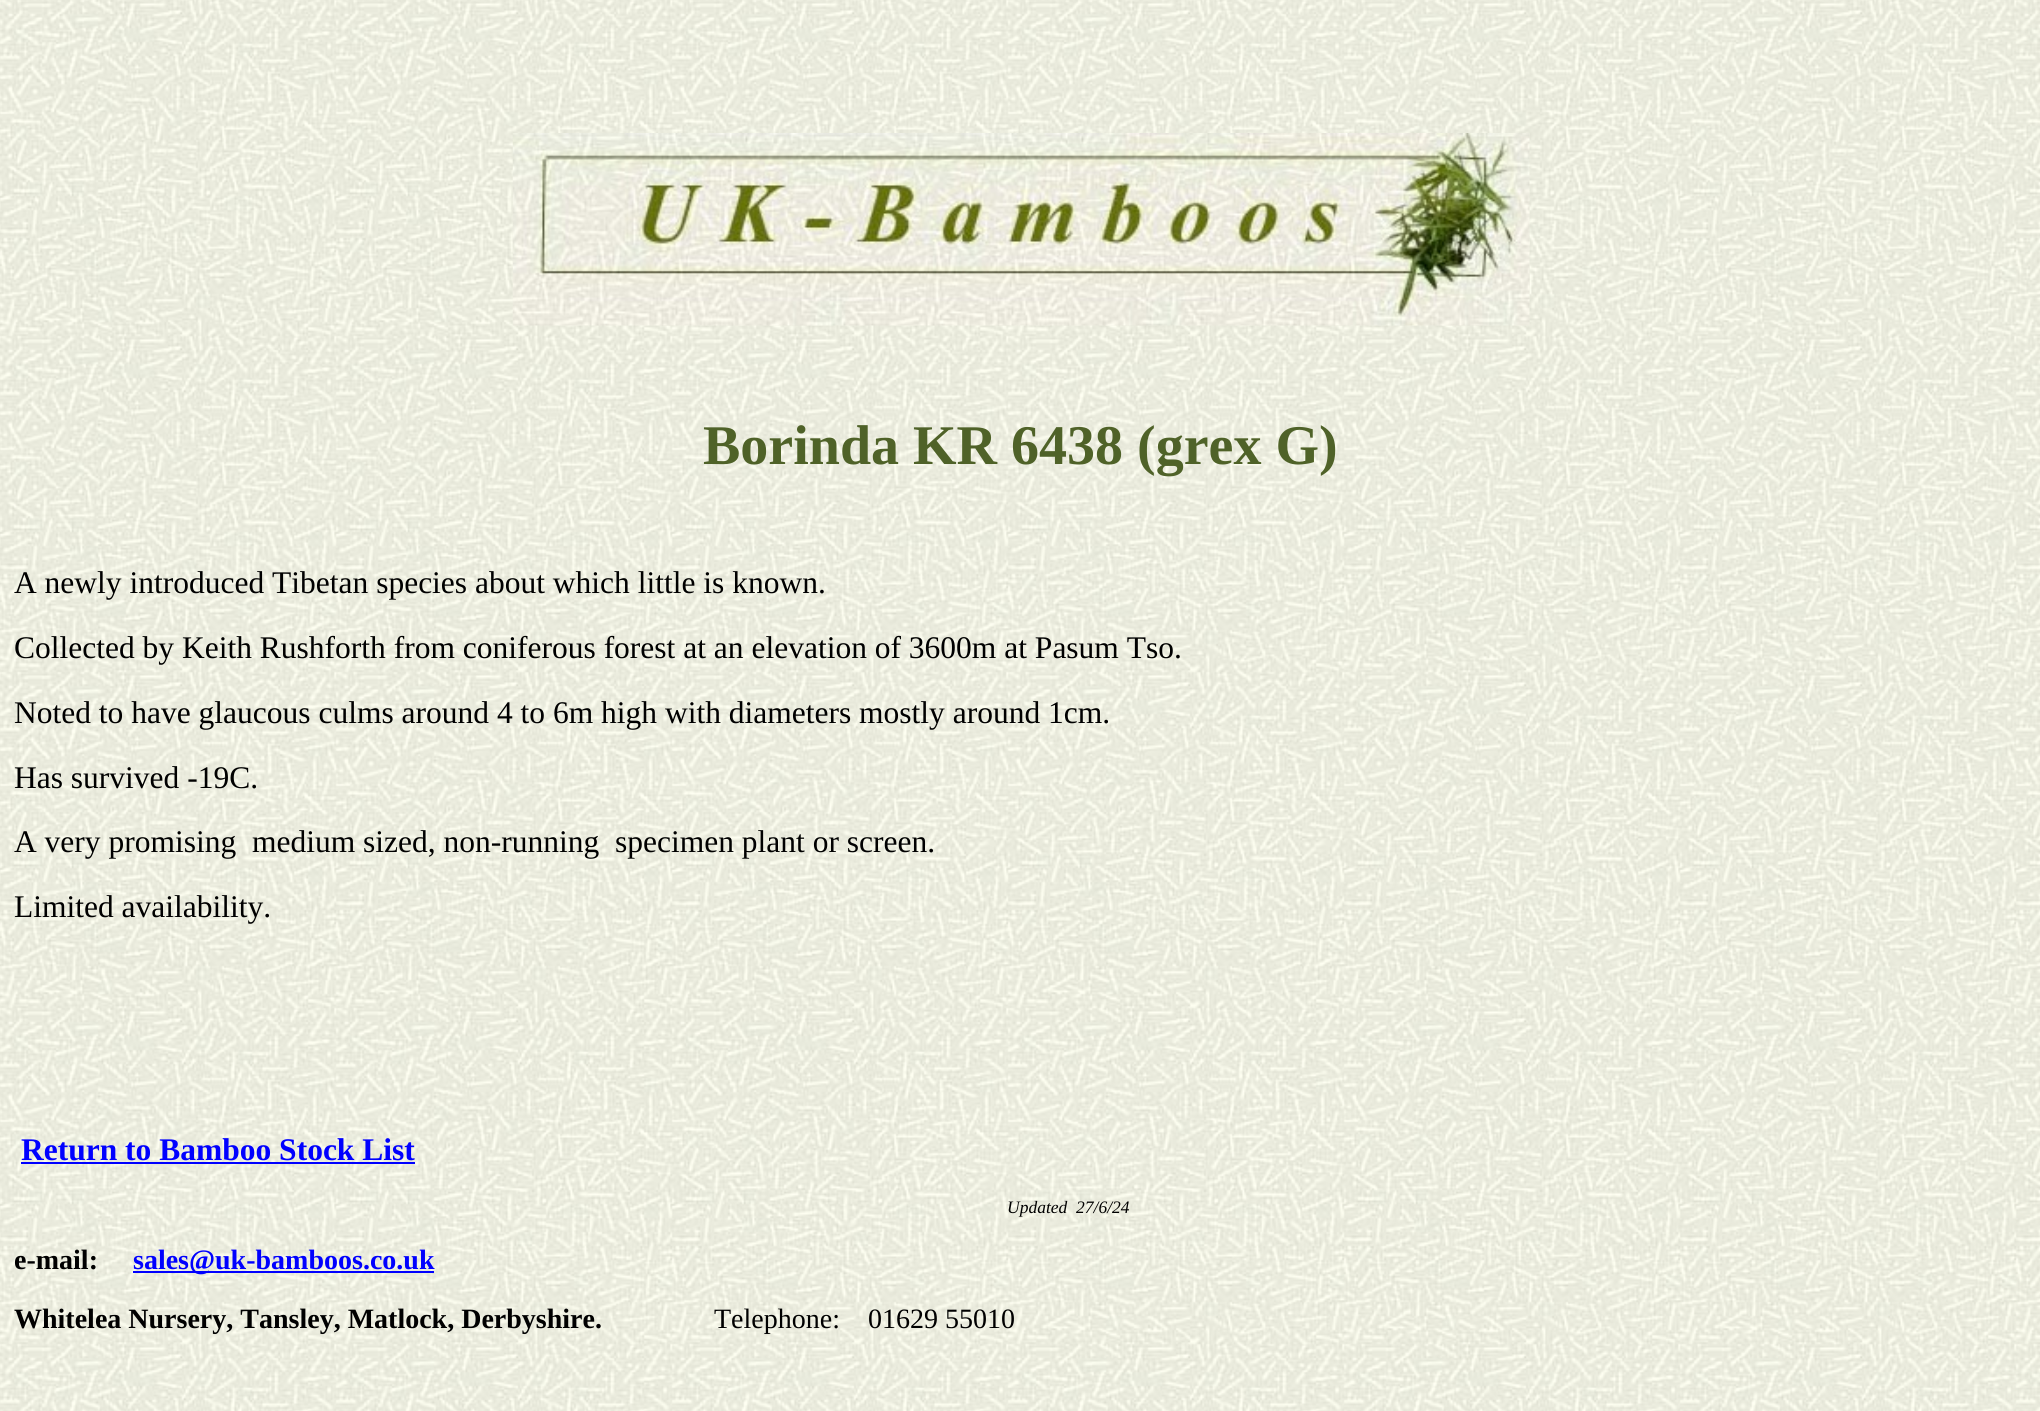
#include <cairo.h>
#include <math.h>
#include <stddef.h>

static cairo_t *ctx;

static void use_color(int r, int g, int b) {
    cairo_set_source_rgb(ctx, r / 255.0, g / 255.0, b / 255.0);
}

static void picture(const char *path, double x, double y, double w, double h) {
    cairo_surface_t *image = cairo_image_surface_create_from_png(path);
    cairo_save(ctx);
    cairo_set_source_surface(ctx, image, x, y);
    cairo_rectangle(ctx, x, y, w, h);
    cairo_fill(ctx);
    cairo_restore(ctx);
    cairo_surface_destroy(image);
}

int main(void) {
    cairo_surface_t *surface = cairo_image_surface_create(CAIRO_FORMAT_RGB24, 2040, 1411);
    ctx = cairo_create(surface);
    cairo_font_options_t *options = cairo_font_options_create();
    cairo_font_options_set_hint_metrics(options, CAIRO_HINT_METRICS_OFF);
    cairo_font_options_set_hint_style(options, CAIRO_HINT_STYLE_NONE);
    cairo_set_font_options(ctx, options);
    cairo_set_miter_limit(ctx, 4);
    use_color(255, 255, 255);
    cairo_paint(ctx);
    picture("img1.png", 0, 0, 2040, 1411);
    picture("img2.png", 512, 133, 1018, 193);
    cairo_select_font_face(ctx, "Liberation Serif", CAIRO_FONT_SLANT_NORMAL, CAIRO_FONT_WEIGHT_BOLD);
    cairo_set_font_size(ctx, 56);
    use_color(79, 98, 40);
    cairo_move_to(ctx, 703, 464);
    cairo_show_text(ctx, "Borinda KR 6438 (grex G)");
    cairo_select_font_face(ctx, "Liberation Serif", CAIRO_FONT_SLANT_NORMAL, CAIRO_FONT_WEIGHT_NORMAL);
    cairo_set_font_size(ctx, 31.5);
    use_color(0, 0, 0);
    cairo_move_to(ctx, 14, 593);
    cairo_show_text(ctx, "A newly introduced Tibetan species about which little is known.");
    cairo_move_to(ctx, 14, 658);
    cairo_show_text(ctx, "Collected by Keith Rushforth from coniferous forest at an elevation of 3600m at Pasum Tso.");
    cairo_move_to(ctx, 14, 723);
    cairo_show_text(ctx, "Noted to have glaucous culms around 4 to 6m high with diameters mostly around 1cm.");
    cairo_move_to(ctx, 14, 788);
    cairo_show_text(ctx, "Has survived -19C.");
    cairo_move_to(ctx, 14, 852);
    cairo_show_text(ctx, "A very promising  medium sized, non-running  specimen plant or screen.");
    cairo_move_to(ctx, 14, 917);
    cairo_show_text(ctx, "Limited availability.");
    cairo_select_font_face(ctx, "Liberation Serif", CAIRO_FONT_SLANT_NORMAL, CAIRO_FONT_WEIGHT_BOLD);
    use_color(0, 0, 255);
    cairo_move_to(ctx, 21, 1160);
    cairo_show_text(ctx, "Return to Bamboo Stock List");
    cairo_rectangle(ctx, 21, 1162, 394, 2);
    cairo_fill(ctx);
    cairo_select_font_face(ctx, "Liberation Serif", CAIRO_FONT_SLANT_ITALIC, CAIRO_FONT_WEIGHT_NORMAL);
    cairo_set_font_size(ctx, 17.5);
    use_color(0, 0, 0);
    cairo_move_to(ctx, 1007, 1213);
    cairo_show_text(ctx, "Updated  27/6/24");
    cairo_select_font_face(ctx, "Liberation Serif", CAIRO_FONT_SLANT_NORMAL, CAIRO_FONT_WEIGHT_BOLD);
    cairo_set_font_size(ctx, 28);
    cairo_move_to(ctx, 14, 1269);
    cairo_show_text(ctx, "e-mail:");
    use_color(0, 0, 255);
    cairo_rectangle(ctx, 133, 1271, 301, 2);
    cairo_fill(ctx);
    cairo_move_to(ctx, 133, 1269);
    cairo_show_text(ctx, "sales@uk-bamboos.co.uk");
    use_color(0, 0, 0);
    cairo_move_to(ctx, 14, 1328);
    cairo_show_text(ctx, "Whitelea Nursery, Tansley, Matlock, Derbyshire.");
    cairo_select_font_face(ctx, "Liberation Serif", CAIRO_FONT_SLANT_NORMAL, CAIRO_FONT_WEIGHT_NORMAL);
    cairo_move_to(ctx, 714, 1328);
    cairo_show_text(ctx, "Telephone:");
    cairo_move_to(ctx, 868, 1328);
    cairo_show_text(ctx, "01629 55010");
    cairo_surface_write_to_png(surface, "result.png");
    cairo_font_options_destroy(options);
    cairo_destroy(ctx);
    cairo_surface_destroy(surface);
    return 0;
}
